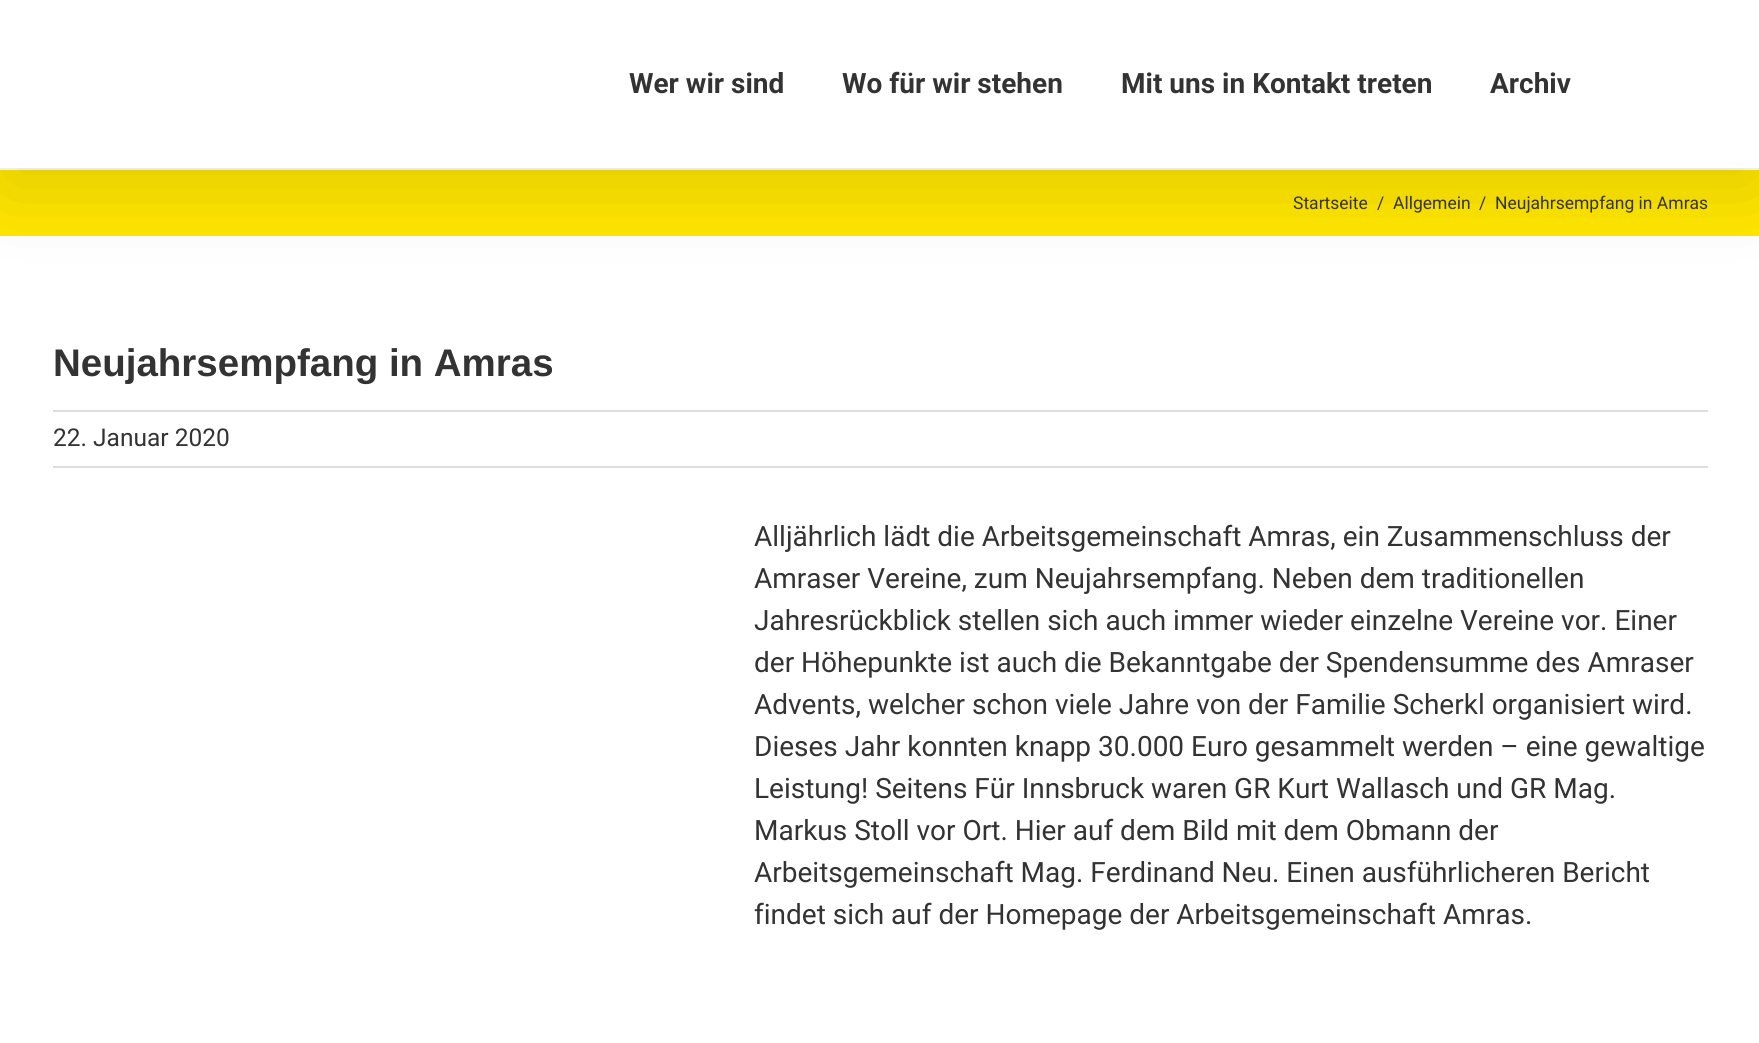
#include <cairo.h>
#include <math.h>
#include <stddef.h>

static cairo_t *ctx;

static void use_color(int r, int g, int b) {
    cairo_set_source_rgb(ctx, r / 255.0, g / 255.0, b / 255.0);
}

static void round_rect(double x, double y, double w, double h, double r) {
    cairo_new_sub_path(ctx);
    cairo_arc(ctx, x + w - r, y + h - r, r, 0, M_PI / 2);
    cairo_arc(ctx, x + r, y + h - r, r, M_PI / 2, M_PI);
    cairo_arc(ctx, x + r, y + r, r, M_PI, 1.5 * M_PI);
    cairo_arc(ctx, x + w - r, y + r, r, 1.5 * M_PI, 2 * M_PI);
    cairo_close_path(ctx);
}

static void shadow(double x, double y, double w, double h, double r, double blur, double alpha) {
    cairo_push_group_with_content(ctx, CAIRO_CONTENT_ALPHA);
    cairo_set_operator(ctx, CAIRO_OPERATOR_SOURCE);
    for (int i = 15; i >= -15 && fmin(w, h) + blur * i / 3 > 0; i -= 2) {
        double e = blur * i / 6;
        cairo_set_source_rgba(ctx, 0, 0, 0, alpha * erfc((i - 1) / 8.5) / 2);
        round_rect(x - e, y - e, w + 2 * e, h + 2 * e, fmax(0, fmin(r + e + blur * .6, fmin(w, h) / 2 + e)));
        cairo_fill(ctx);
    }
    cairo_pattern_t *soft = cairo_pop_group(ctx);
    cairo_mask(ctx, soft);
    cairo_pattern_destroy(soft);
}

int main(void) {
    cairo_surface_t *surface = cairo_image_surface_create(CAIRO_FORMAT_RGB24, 1759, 1043);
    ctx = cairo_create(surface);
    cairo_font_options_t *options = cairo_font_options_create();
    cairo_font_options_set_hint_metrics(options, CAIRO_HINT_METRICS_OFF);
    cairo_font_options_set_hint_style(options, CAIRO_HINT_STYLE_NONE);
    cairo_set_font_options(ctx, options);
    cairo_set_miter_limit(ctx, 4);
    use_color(255, 230, 0);
    cairo_paint(ctx);
    use_color(255, 255, 255);
    cairo_rectangle(ctx, 0, 168, 1759, 2);
    cairo_fill(ctx);
    cairo_rectangle(ctx, 0, 236, 1759, 807);
    cairo_fill(ctx);
    use_color(0, 0, 0);
    shadow(4, 21, 1753, 161, 0, 44, 0.14);
    use_color(255, 255, 255);
    cairo_rectangle(ctx, 0, 0, 1759, 168);
    cairo_fill(ctx);
    cairo_select_font_face(ctx, "Roboto", CAIRO_FONT_SLANT_NORMAL, CAIRO_FONT_WEIGHT_BOLD);
    cairo_set_font_size(ctx, 28);
    use_color(51, 51, 51);
    cairo_move_to(ctx, 629, 93);
    cairo_show_text(ctx, "Wer wir sind");
    cairo_move_to(ctx, 842, 93);
    cairo_show_text(ctx, "Wo für wir stehen");
    cairo_move_to(ctx, 1121, 93);
    cairo_show_text(ctx, "Mit uns in Kontakt treten");
    cairo_move_to(ctx, 1490, 93);
    cairo_show_text(ctx, "Archiv");
    cairo_select_font_face(ctx, "Roboto", CAIRO_FONT_SLANT_NORMAL, CAIRO_FONT_WEIGHT_NORMAL);
    cairo_set_font_size(ctx, 17.5);
    cairo_move_to(ctx, 1293, 209);
    cairo_show_text(ctx, "Startseite");
    cairo_move_to(ctx, 1377, 209);
    cairo_show_text(ctx, "/");
    cairo_move_to(ctx, 1393, 209);
    cairo_show_text(ctx, "Allgemein");
    cairo_move_to(ctx, 1479, 209);
    cairo_show_text(ctx, "/");
    cairo_move_to(ctx, 1495, 209);
    cairo_show_text(ctx, "Neujahrsempfang in Amras");
    cairo_select_font_face(ctx, "Liberation Sans", CAIRO_FONT_SLANT_NORMAL, CAIRO_FONT_WEIGHT_BOLD);
    cairo_set_font_size(ctx, 38.5);
    cairo_move_to(ctx, 53, 376);
    cairo_show_text(ctx, "Neujahrsempfang in Amras");
    use_color(224, 222, 222);
    cairo_rectangle(ctx, 53, 410, 1655, 2);
    cairo_fill(ctx);
    cairo_rectangle(ctx, 53, 466, 1655, 2);
    cairo_fill(ctx);
    cairo_select_font_face(ctx, "Roboto", CAIRO_FONT_SLANT_NORMAL, CAIRO_FONT_WEIGHT_NORMAL);
    cairo_set_font_size(ctx, 24.5);
    use_color(51, 51, 51);
    cairo_move_to(ctx, 53, 446);
    cairo_show_text(ctx, "22. Januar 2020");
    cairo_set_font_size(ctx, 28);
    cairo_move_to(ctx, 754, 546);
    cairo_show_text(ctx, "Alljährlich lädt die Arbeitsgemeinschaft Amras, ein Zusammenschluss der");
    cairo_move_to(ctx, 754, 588);
    cairo_show_text(ctx, "Amraser Vereine, zum Neujahrsempfang. Neben dem traditionellen");
    cairo_move_to(ctx, 754, 630);
    cairo_show_text(ctx, "Jahresrückblick stellen sich auch immer wieder einzelne Vereine vor. Einer");
    cairo_move_to(ctx, 754, 672);
    cairo_show_text(ctx, "der Höhepunkte ist auch die Bekanntgabe der Spendensumme des Amraser");
    cairo_move_to(ctx, 754, 714);
    cairo_show_text(ctx, "Advents, welcher schon viele Jahre von der Familie Scherkl organisiert wird.");
    cairo_move_to(ctx, 754, 756);
    cairo_show_text(ctx, "Dieses Jahr konnten knapp 30.000 Euro gesammelt werden – eine gewaltige");
    cairo_move_to(ctx, 754, 798);
    cairo_show_text(ctx, "Leistung! Seitens Für Innsbruck waren GR Kurt Wallasch und GR Mag.");
    cairo_move_to(ctx, 754, 840);
    cairo_show_text(ctx, "Markus Stoll vor Ort. Hier auf dem Bild mit dem Obmann der");
    cairo_move_to(ctx, 754, 882);
    cairo_show_text(ctx, "Arbeitsgemeinschaft Mag. Ferdinand Neu. Einen ausführlicheren Bericht");
    cairo_move_to(ctx, 754, 924);
    cairo_show_text(ctx, "findet sich auf der Homepage der Arbeitsgemeinschaft Amras.");
    cairo_surface_write_to_png(surface, "result.png");
    cairo_font_options_destroy(options);
    cairo_destroy(ctx);
    cairo_surface_destroy(surface);
    return 0;
}
